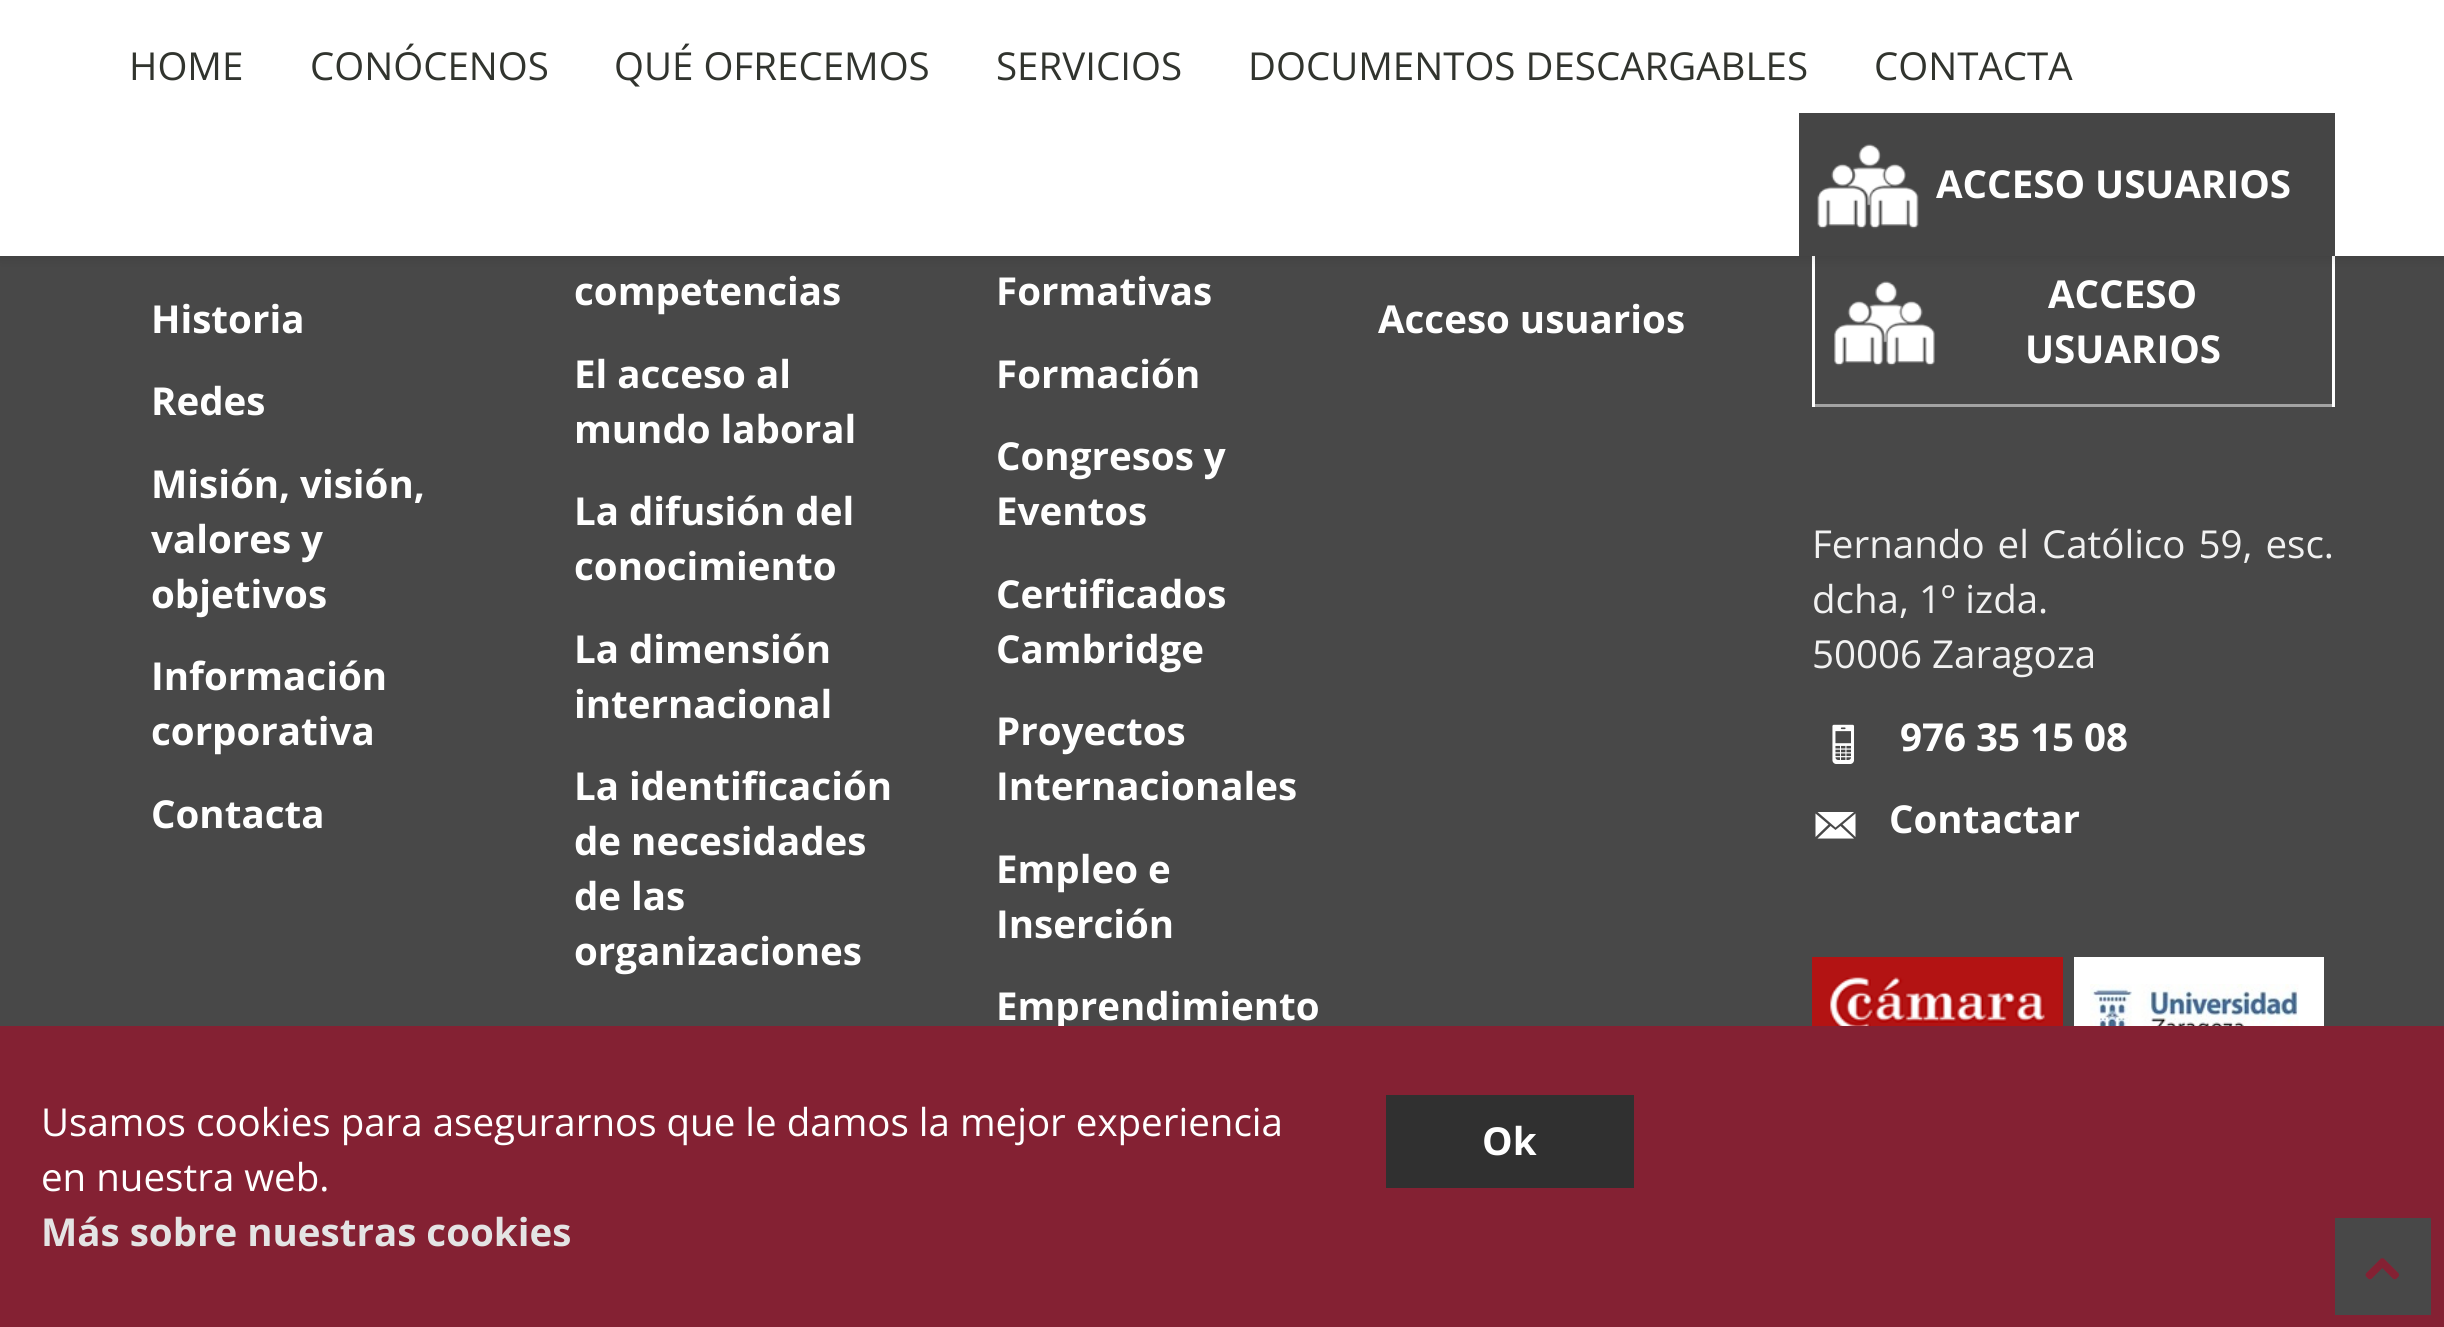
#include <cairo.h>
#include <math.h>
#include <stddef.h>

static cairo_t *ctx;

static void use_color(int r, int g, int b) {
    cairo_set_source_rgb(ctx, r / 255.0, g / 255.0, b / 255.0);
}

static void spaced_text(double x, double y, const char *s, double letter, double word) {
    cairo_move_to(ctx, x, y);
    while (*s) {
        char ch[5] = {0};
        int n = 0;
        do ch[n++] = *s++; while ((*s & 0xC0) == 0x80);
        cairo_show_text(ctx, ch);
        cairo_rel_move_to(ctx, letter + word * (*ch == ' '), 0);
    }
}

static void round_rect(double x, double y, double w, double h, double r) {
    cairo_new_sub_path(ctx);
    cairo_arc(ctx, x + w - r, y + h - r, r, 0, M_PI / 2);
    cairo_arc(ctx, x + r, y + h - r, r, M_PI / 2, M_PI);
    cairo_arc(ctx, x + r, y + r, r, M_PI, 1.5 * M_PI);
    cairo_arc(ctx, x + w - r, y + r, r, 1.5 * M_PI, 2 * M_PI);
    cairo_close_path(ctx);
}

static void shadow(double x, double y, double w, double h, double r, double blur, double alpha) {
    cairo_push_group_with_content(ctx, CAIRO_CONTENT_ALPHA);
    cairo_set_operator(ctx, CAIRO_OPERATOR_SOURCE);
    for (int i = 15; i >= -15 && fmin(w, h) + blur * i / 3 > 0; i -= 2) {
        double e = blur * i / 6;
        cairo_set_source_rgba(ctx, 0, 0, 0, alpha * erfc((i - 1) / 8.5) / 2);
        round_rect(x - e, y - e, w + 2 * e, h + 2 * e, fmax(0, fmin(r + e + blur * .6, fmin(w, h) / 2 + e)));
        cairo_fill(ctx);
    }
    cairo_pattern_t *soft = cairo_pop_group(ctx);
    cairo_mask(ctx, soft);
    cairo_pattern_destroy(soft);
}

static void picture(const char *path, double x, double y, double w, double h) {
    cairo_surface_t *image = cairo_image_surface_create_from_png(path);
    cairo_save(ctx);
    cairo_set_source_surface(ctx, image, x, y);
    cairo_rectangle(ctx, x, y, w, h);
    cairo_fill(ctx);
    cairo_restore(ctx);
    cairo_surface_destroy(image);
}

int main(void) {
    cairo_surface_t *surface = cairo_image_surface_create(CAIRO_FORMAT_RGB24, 2444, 1327);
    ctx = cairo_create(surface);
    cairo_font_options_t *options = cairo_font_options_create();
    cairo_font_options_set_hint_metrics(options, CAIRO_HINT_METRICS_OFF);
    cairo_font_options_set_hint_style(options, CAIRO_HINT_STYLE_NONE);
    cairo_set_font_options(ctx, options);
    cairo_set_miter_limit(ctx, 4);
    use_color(72, 72, 72);
    cairo_paint(ctx);
    picture("img2.png", 1834, 281, 101, 85);
    cairo_rectangle(ctx, 1813.5, 238.5, 520, 167);
    use_color(255, 255, 255);
    cairo_set_line_width(ctx, 3);
    cairo_stroke(ctx);
    use_color(0, 0, 0);
    shadow(0, 0, 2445, 256, 0, 7, 0.15);
    use_color(255, 255, 255);
    cairo_rectangle(ctx, 0, 0, 2444, 256);
    cairo_fill(ctx);
    cairo_select_font_face(ctx, "Open Sans", CAIRO_FONT_SLANT_NORMAL, CAIRO_FONT_WEIGHT_NORMAL);
    cairo_set_font_size(ctx, 38.5);
    use_color(49, 52, 46);
    cairo_move_to(ctx, 129, 80);
    cairo_show_text(ctx, "HOME");
    cairo_move_to(ctx, 310, 80);
    cairo_show_text(ctx, "CONÓCENOS");
    cairo_move_to(ctx, 614, 80);
    cairo_show_text(ctx, "QUÉ OFRECEMOS");
    cairo_move_to(ctx, 996, 80);
    cairo_show_text(ctx, "SERVICIOS");
    cairo_move_to(ctx, 1248, 80);
    cairo_show_text(ctx, "DOCUMENTOS DESCARGABLES");
    cairo_move_to(ctx, 1874, 80);
    cairo_show_text(ctx, "CONTACTA");
    use_color(69, 69, 69);
    cairo_rectangle(ctx, 1799, 113, 536, 143);
    cairo_fill(ctx);
    picture("img1.png", 1817, 144, 102, 85);
    cairo_select_font_face(ctx, "Open Sans", CAIRO_FONT_SLANT_NORMAL, CAIRO_FONT_WEIGHT_BOLD);
    use_color(255, 255, 255);
    cairo_move_to(ctx, 1936, 198);
    cairo_show_text(ctx, "ACCESO USUARIOS");
    cairo_move_to(ctx, 151, 333);
    cairo_show_text(ctx, "Historia");
    cairo_move_to(ctx, 151, 415);
    cairo_show_text(ctx, "Redes");
    cairo_move_to(ctx, 151, 498);
    cairo_show_text(ctx, "Misión, visión,");
    cairo_move_to(ctx, 151, 553);
    cairo_show_text(ctx, "valores y");
    cairo_move_to(ctx, 151, 608);
    cairo_show_text(ctx, "objetivos");
    cairo_move_to(ctx, 151, 690);
    cairo_show_text(ctx, "Información");
    cairo_move_to(ctx, 151, 745);
    cairo_show_text(ctx, "corporativa");
    cairo_move_to(ctx, 151, 828);
    cairo_show_text(ctx, "Contacta");
    cairo_move_to(ctx, 574, 305);
    cairo_show_text(ctx, "competencias");
    cairo_move_to(ctx, 574, 388);
    cairo_show_text(ctx, "El acceso al");
    cairo_move_to(ctx, 574, 443);
    cairo_show_text(ctx, "mundo laboral");
    cairo_move_to(ctx, 574, 525);
    cairo_show_text(ctx, "La difusión del");
    cairo_move_to(ctx, 574, 580);
    cairo_show_text(ctx, "conocimiento");
    cairo_move_to(ctx, 574, 663);
    cairo_show_text(ctx, "La dimensión");
    cairo_move_to(ctx, 574, 718);
    cairo_show_text(ctx, "internacional");
    cairo_move_to(ctx, 574, 800);
    cairo_show_text(ctx, "La identificación");
    cairo_move_to(ctx, 574, 855);
    cairo_show_text(ctx, "de necesidades");
    cairo_move_to(ctx, 574, 910);
    cairo_show_text(ctx, "de las");
    cairo_move_to(ctx, 574, 965);
    cairo_show_text(ctx, "organizaciones");
    cairo_move_to(ctx, 996, 305);
    cairo_show_text(ctx, "Formativas");
    cairo_move_to(ctx, 996, 388);
    cairo_show_text(ctx, "Formación");
    cairo_move_to(ctx, 996, 470);
    cairo_show_text(ctx, "Congresos y");
    cairo_move_to(ctx, 996, 525);
    cairo_show_text(ctx, "Eventos");
    cairo_move_to(ctx, 996, 608);
    cairo_show_text(ctx, "Certificados");
    cairo_move_to(ctx, 996, 663);
    cairo_show_text(ctx, "Cambridge");
    cairo_move_to(ctx, 996, 745);
    cairo_show_text(ctx, "Proyectos");
    cairo_move_to(ctx, 996, 800);
    cairo_show_text(ctx, "Internacionales");
    cairo_move_to(ctx, 996, 883);
    cairo_show_text(ctx, "Empleo e");
    cairo_move_to(ctx, 996, 938);
    cairo_show_text(ctx, "Inserción");
    cairo_move_to(ctx, 996, 1020);
    cairo_show_text(ctx, "Emprendimiento");
    cairo_move_to(ctx, 1378, 333);
    cairo_show_text(ctx, "Acceso usuarios");
    cairo_move_to(ctx, 2048, 308);
    cairo_show_text(ctx, "ACCESO");
    cairo_move_to(ctx, 2025, 363);
    cairo_show_text(ctx, "USUARIOS");
    cairo_set_source_rgba(ctx, 0.282, 0.282, 0.282, 0.5);
    cairo_rectangle(ctx, 1815, 404, 517, 3);
    cairo_fill(ctx);
    cairo_select_font_face(ctx, "Open Sans", CAIRO_FONT_SLANT_NORMAL, CAIRO_FONT_WEIGHT_NORMAL);
    use_color(241, 241, 241);
    spaced_text(1812, 558, "Fernando el Católico 59, esc.", 0, 3);
    cairo_move_to(ctx, 1812, 613);
    cairo_show_text(ctx, "dcha, 1º izda.");
    cairo_move_to(ctx, 1812, 668);
    cairo_show_text(ctx, "50006 Zaragoza");
    picture("img3.png", 1832, 724, 23, 40);
    cairo_select_font_face(ctx, "Open Sans", CAIRO_FONT_SLANT_NORMAL, CAIRO_FONT_WEIGHT_BOLD);
    use_color(255, 255, 255);
    cairo_move_to(ctx, 1900, 751);
    cairo_show_text(ctx, "976 35 15 08");
    cairo_new_path(ctx);
    cairo_move_to(ctx, 1815.5, 814);
    cairo_line_to(ctx, 1815.5, 813.5);
    cairo_line_to(ctx, 1828.5, 824.5);
    cairo_line_to(ctx, 1815.5, 837);
    cairo_close_path(ctx);
    cairo_move_to(ctx, 1817.5, 812);
    cairo_line_to(ctx, 1854, 812);
    cairo_line_to(ctx, 1835.5, 827.5);
    cairo_close_path(ctx);
    cairo_move_to(ctx, 1830.5, 826);
    cairo_line_to(ctx, 1835.5, 830);
    cairo_line_to(ctx, 1840.5, 826);
    cairo_line_to(ctx, 1854, 838.5);
    cairo_line_to(ctx, 1817.5, 838.5);
    cairo_close_path(ctx);
    cairo_move_to(ctx, 1842.5, 824.5);
    cairo_line_to(ctx, 1855.5, 813.5);
    cairo_line_to(ctx, 1855.5, 837);
    cairo_close_path(ctx);
    cairo_fill(ctx);
    cairo_move_to(ctx, 1889, 833);
    cairo_show_text(ctx, "Contactar");
    use_color(179, 19, 19);
    cairo_rectangle(ctx, 1812, 957, 251, 69);
    cairo_fill(ctx);
    picture("img4.png", 1830, 977, 215, 49);
    use_color(255, 255, 255);
    cairo_rectangle(ctx, 2074, 957, 250, 69);
    cairo_fill(ctx);
    picture("img5.png", 2090, 984, 209, 42);
    use_color(132, 33, 51);
    cairo_rectangle(ctx, 0, 1026, 2444, 301);
    cairo_fill(ctx);
    cairo_select_font_face(ctx, "Open Sans", CAIRO_FONT_SLANT_NORMAL, CAIRO_FONT_WEIGHT_NORMAL);
    use_color(255, 255, 255);
    cairo_move_to(ctx, 41, 1136);
    cairo_show_text(ctx, "Usamos cookies para asegurarnos que le damos la mejor experiencia");
    cairo_move_to(ctx, 41, 1191);
    cairo_show_text(ctx, "en nuestra web.");
    cairo_select_font_face(ctx, "Open Sans", CAIRO_FONT_SLANT_NORMAL, CAIRO_FONT_WEIGHT_BOLD);
    use_color(228, 228, 228);
    cairo_move_to(ctx, 41, 1246);
    cairo_show_text(ctx, "Más sobre nuestras cookies");
    use_color(48, 48, 48);
    cairo_rectangle(ctx, 1386, 1095, 248, 93);
    cairo_fill(ctx);
    use_color(255, 255, 255);
    cairo_move_to(ctx, 1482, 1155);
    cairo_show_text(ctx, "Ok");
    use_color(72, 72, 72);
    cairo_rectangle(ctx, 2335, 1218, 96, 97);
    cairo_fill(ctx);
    picture("img6.png", 2365, 1258, 34, 22);
    cairo_surface_write_to_png(surface, "result.png");
    cairo_font_options_destroy(options);
    cairo_destroy(ctx);
    cairo_surface_destroy(surface);
    return 0;
}
